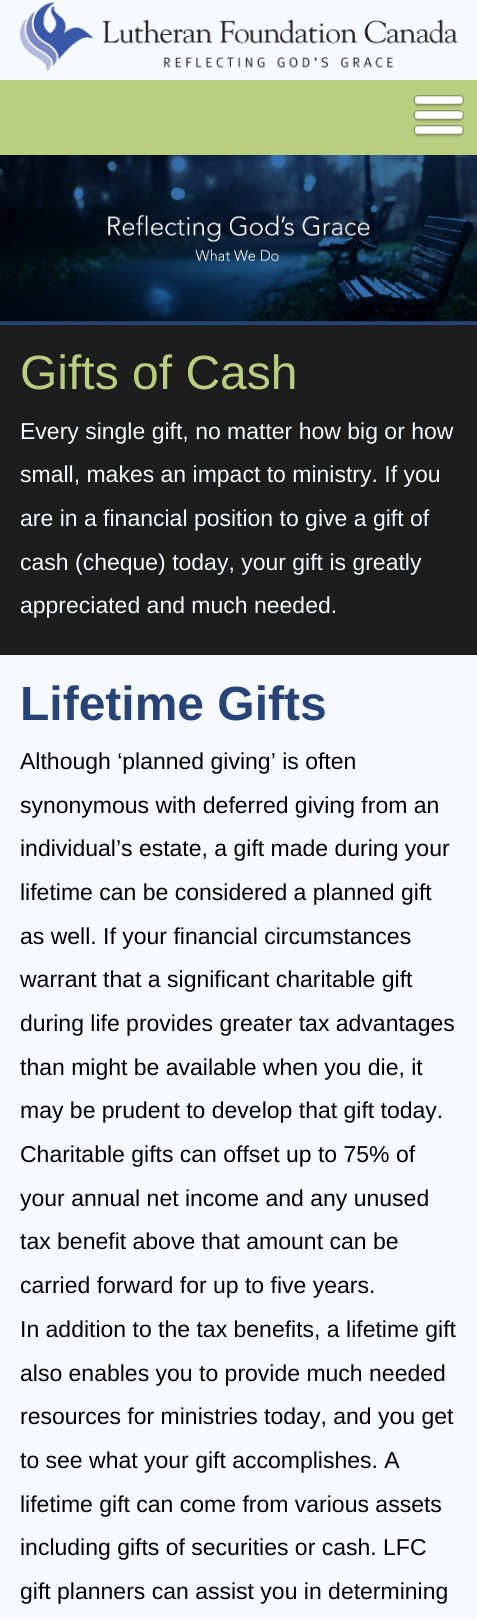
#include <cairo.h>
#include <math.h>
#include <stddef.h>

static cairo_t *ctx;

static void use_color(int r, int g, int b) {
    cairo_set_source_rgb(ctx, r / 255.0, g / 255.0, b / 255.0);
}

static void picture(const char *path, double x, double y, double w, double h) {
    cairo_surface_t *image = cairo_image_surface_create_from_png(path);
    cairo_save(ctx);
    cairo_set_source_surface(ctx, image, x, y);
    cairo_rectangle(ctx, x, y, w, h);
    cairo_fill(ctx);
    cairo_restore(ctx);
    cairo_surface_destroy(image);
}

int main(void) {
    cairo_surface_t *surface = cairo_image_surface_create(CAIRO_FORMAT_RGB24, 477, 1619);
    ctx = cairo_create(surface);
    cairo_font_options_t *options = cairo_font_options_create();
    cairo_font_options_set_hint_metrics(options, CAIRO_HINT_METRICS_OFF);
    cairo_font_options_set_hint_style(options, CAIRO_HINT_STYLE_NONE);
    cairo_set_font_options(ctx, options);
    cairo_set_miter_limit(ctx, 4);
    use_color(246, 250, 255);
    cairo_paint(ctx);
    picture("img1.png", 20, 1, 438, 70);
    use_color(185, 206, 129);
    cairo_rectangle(ctx, 0, 80, 477, 75);
    cairo_fill(ctx);
    picture("img2.png", 413, 95, 51, 43);
    use_color(40, 67, 117);
    cairo_rectangle(ctx, 0, 321, 477, 4);
    cairo_fill(ctx);
    picture("img3.png", 0, 155, 477, 167);
    use_color(29, 29, 29);
    cairo_rectangle(ctx, 0, 325, 477, 330);
    cairo_fill(ctx);
    cairo_select_font_face(ctx, "Liberation Sans", CAIRO_FONT_SLANT_NORMAL, CAIRO_FONT_WEIGHT_NORMAL);
    cairo_set_font_size(ctx, 48);
    use_color(185, 206, 129);
    cairo_move_to(ctx, 20, 389);
    cairo_show_text(ctx, "Gifts of Cash");
    cairo_set_font_size(ctx, 23);
    use_color(246, 250, 255);
    cairo_move_to(ctx, 20, 439);
    cairo_show_text(ctx, "Every single gift, no matter how big or how");
    cairo_move_to(ctx, 20, 482);
    cairo_show_text(ctx, "small, makes an impact to ministry. If you");
    cairo_move_to(ctx, 20, 526);
    cairo_show_text(ctx, "are in a financial position to give a gift of");
    cairo_move_to(ctx, 20, 570);
    cairo_show_text(ctx, "cash (cheque) today, your gift is greatly");
    cairo_move_to(ctx, 20, 613);
    cairo_show_text(ctx, "appreciated and much needed.");
    cairo_select_font_face(ctx, "Liberation Sans", CAIRO_FONT_SLANT_NORMAL, CAIRO_FONT_WEIGHT_BOLD);
    cairo_set_font_size(ctx, 48);
    use_color(40, 67, 117);
    cairo_move_to(ctx, 20, 720);
    cairo_show_text(ctx, "Lifetime Gifts");
    cairo_select_font_face(ctx, "Liberation Sans", CAIRO_FONT_SLANT_NORMAL, CAIRO_FONT_WEIGHT_NORMAL);
    cairo_set_font_size(ctx, 23);
    use_color(0, 0, 0);
    cairo_move_to(ctx, 20, 769);
    cairo_show_text(ctx, "Although ‘planned giving’ is often");
    cairo_move_to(ctx, 20, 813);
    cairo_show_text(ctx, "synonymous with deferred giving from an");
    cairo_move_to(ctx, 20, 856);
    cairo_show_text(ctx, "individual’s estate, a gift made during your");
    cairo_move_to(ctx, 20, 900);
    cairo_show_text(ctx, "lifetime can be considered a planned gift");
    cairo_move_to(ctx, 20, 944);
    cairo_show_text(ctx, "as well. If your financial circumstances");
    cairo_move_to(ctx, 20, 987);
    cairo_show_text(ctx, "warrant that a significant charitable gift");
    cairo_move_to(ctx, 20, 1031);
    cairo_show_text(ctx, "during life provides greater tax advantages");
    cairo_move_to(ctx, 20, 1075);
    cairo_show_text(ctx, "than might be available when you die, it");
    cairo_move_to(ctx, 20, 1118);
    cairo_show_text(ctx, "may be prudent to develop that gift today.");
    cairo_move_to(ctx, 20, 1162);
    cairo_show_text(ctx, "Charitable gifts can offset up to 75% of");
    cairo_move_to(ctx, 20, 1206);
    cairo_show_text(ctx, "your annual net income and any unused");
    cairo_move_to(ctx, 20, 1249);
    cairo_show_text(ctx, "tax benefit above that amount can be");
    cairo_move_to(ctx, 20, 1293);
    cairo_show_text(ctx, "carried forward for up to five years.");
    cairo_move_to(ctx, 20, 1337);
    cairo_show_text(ctx, "In addition to the tax benefits, a lifetime gift");
    cairo_move_to(ctx, 20, 1381);
    cairo_show_text(ctx, "also enables you to provide much needed");
    cairo_move_to(ctx, 20, 1424);
    cairo_show_text(ctx, "resources for ministries today, and you get");
    cairo_move_to(ctx, 20, 1468);
    cairo_show_text(ctx, "to see what your gift accomplishes. A");
    cairo_move_to(ctx, 20, 1512);
    cairo_show_text(ctx, "lifetime gift can come from various assets");
    cairo_move_to(ctx, 20, 1555);
    cairo_show_text(ctx, "including gifts of securities or cash. LFC");
    cairo_move_to(ctx, 20, 1599);
    cairo_show_text(ctx, "gift planners can assist you in determining");
    cairo_surface_write_to_png(surface, "result.png");
    cairo_font_options_destroy(options);
    cairo_destroy(ctx);
    cairo_surface_destroy(surface);
    return 0;
}
